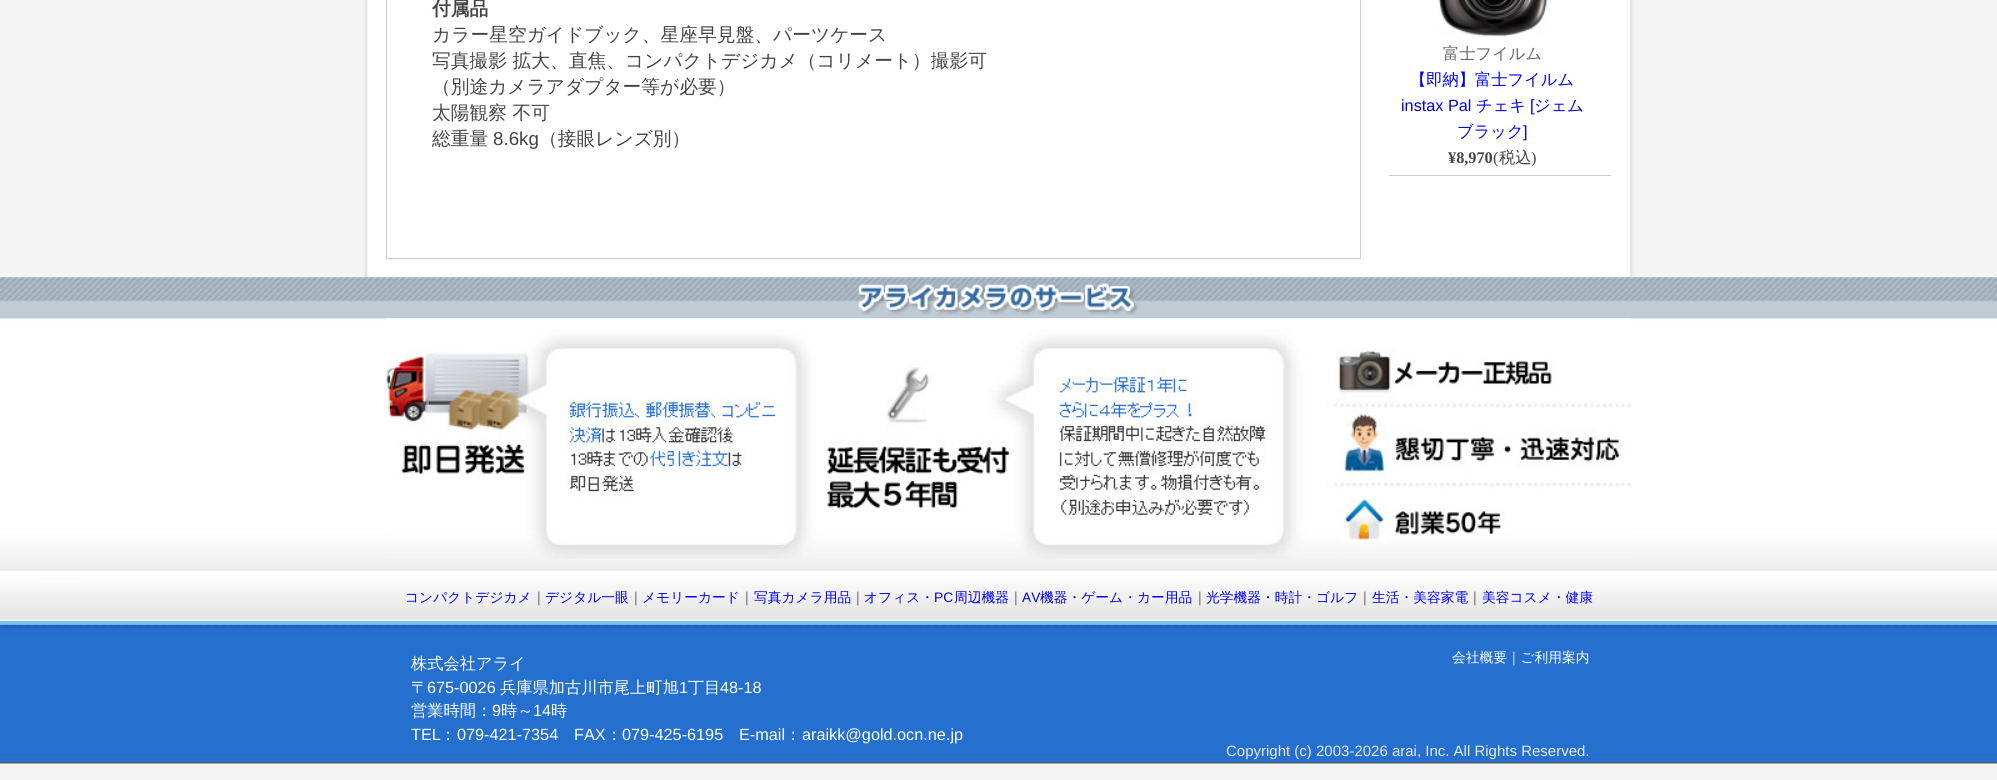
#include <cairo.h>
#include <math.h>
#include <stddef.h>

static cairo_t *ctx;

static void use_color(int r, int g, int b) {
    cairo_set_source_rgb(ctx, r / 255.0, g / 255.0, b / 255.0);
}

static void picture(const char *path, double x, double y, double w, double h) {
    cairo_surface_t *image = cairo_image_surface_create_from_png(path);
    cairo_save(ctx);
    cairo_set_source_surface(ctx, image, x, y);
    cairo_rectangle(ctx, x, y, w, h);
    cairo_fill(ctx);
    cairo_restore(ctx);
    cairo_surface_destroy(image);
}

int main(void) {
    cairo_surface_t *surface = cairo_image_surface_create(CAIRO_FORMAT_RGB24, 1997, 780);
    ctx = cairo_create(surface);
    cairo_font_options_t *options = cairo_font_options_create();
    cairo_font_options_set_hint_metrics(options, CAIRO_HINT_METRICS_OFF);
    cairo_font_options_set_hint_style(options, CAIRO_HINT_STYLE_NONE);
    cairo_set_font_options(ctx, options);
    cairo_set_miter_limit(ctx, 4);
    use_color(244, 244, 244);
    cairo_paint(ctx);
    picture("img1.png", 364, 0, 1270, 277);
    cairo_rectangle(ctx, 386.5, -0.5, 974, 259);
    use_color(204, 204, 204);
    cairo_set_line_width(ctx, 1);
    cairo_stroke(ctx);
    cairo_select_font_face(ctx, "WenQuanYi Zen Hei", CAIRO_FONT_SLANT_NORMAL, CAIRO_FONT_WEIGHT_BOLD);
    cairo_set_font_size(ctx, 18.75);
    use_color(68, 68, 68);
    cairo_move_to(ctx, 432, 15);
    cairo_show_text(ctx, "付属品");
    cairo_select_font_face(ctx, "WenQuanYi Zen Hei Medium", CAIRO_FONT_SLANT_NORMAL, CAIRO_FONT_WEIGHT_NORMAL);
    cairo_move_to(ctx, 432, 41);
    cairo_show_text(ctx, "カラー星空ガイドブック、星座早見盤、パーツケース");
    cairo_move_to(ctx, 432, 67);
    cairo_show_text(ctx, "写真撮影 拡大、直焦、コンパクトデジカメ（コリメート）撮影可");
    cairo_move_to(ctx, 432, 93);
    cairo_show_text(ctx, "（別途カメラアダプター等が必要）");
    cairo_move_to(ctx, 432, 119);
    cairo_show_text(ctx, "太陽観察 不可");
    cairo_move_to(ctx, 432, 145);
    cairo_show_text(ctx, "総重量");
    cairo_select_font_face(ctx, "Liberation Sans", CAIRO_FONT_SLANT_NORMAL, CAIRO_FONT_WEIGHT_NORMAL);
    cairo_move_to(ctx, 493, 145);
    cairo_show_text(ctx, "8.6kg");
    cairo_select_font_face(ctx, "WenQuanYi Zen Hei Medium", CAIRO_FONT_SLANT_NORMAL, CAIRO_FONT_WEIGHT_NORMAL);
    cairo_move_to(ctx, 539, 145);
    cairo_show_text(ctx, "（接眼レンズ別）");
    use_color(204, 204, 204);
    cairo_rectangle(ctx, 1389, 175, 222, 1);
    cairo_fill(ctx);
    picture("img2.png", 1438, 0, 110, 37);
    cairo_set_font_size(ctx, 16.25);
    use_color(102, 102, 102);
    cairo_move_to(ctx, 1443, 59);
    cairo_show_text(ctx, "富士フイルム");
    use_color(0, 0, 238);
    cairo_move_to(ctx, 1410, 85);
    cairo_show_text(ctx, "【即納】富士フイルム");
    cairo_select_font_face(ctx, "Liberation Sans", CAIRO_FONT_SLANT_NORMAL, CAIRO_FONT_WEIGHT_NORMAL);
    cairo_move_to(ctx, 1401, 111);
    cairo_show_text(ctx, "instax Pal");
    cairo_select_font_face(ctx, "WenQuanYi Zen Hei Medium", CAIRO_FONT_SLANT_NORMAL, CAIRO_FONT_WEIGHT_NORMAL);
    cairo_move_to(ctx, 1476, 111);
    cairo_show_text(ctx, "チェキ");
    cairo_select_font_face(ctx, "Liberation Sans", CAIRO_FONT_SLANT_NORMAL, CAIRO_FONT_WEIGHT_NORMAL);
    cairo_move_to(ctx, 1530, 111);
    cairo_show_text(ctx, "[");
    cairo_select_font_face(ctx, "WenQuanYi Zen Hei Medium", CAIRO_FONT_SLANT_NORMAL, CAIRO_FONT_WEIGHT_NORMAL);
    cairo_move_to(ctx, 1534, 111);
    cairo_show_text(ctx, "ジェム");
    cairo_move_to(ctx, 1457, 137);
    cairo_show_text(ctx, "ブラック");
    cairo_select_font_face(ctx, "Liberation Sans", CAIRO_FONT_SLANT_NORMAL, CAIRO_FONT_WEIGHT_NORMAL);
    cairo_move_to(ctx, 1523, 137);
    cairo_show_text(ctx, "]");
    cairo_select_font_face(ctx, "Liberation Serif", CAIRO_FONT_SLANT_NORMAL, CAIRO_FONT_WEIGHT_BOLD);
    use_color(68, 68, 68);
    cairo_move_to(ctx, 1448, 163);
    cairo_show_text(ctx, "¥8,970");
    cairo_select_font_face(ctx, "Liberation Serif", CAIRO_FONT_SLANT_NORMAL, CAIRO_FONT_WEIGHT_NORMAL);
    cairo_move_to(ctx, 1493, 163);
    cairo_show_text(ctx, "(");
    cairo_select_font_face(ctx, "WenQuanYi Zen Hei Medium", CAIRO_FONT_SLANT_NORMAL, CAIRO_FONT_WEIGHT_NORMAL);
    cairo_move_to(ctx, 1499, 163);
    cairo_show_text(ctx, "税込");
    cairo_select_font_face(ctx, "Liberation Serif", CAIRO_FONT_SLANT_NORMAL, CAIRO_FONT_WEIGHT_NORMAL);
    cairo_move_to(ctx, 1531, 163);
    cairo_show_text(ctx, ")");
    picture("img3.png", 0, 277, 1997, 348);
    picture("img4.png", 858, 283, 280, 32);
    picture("img5.png", 386, 318, 1246, 241);
    cairo_select_font_face(ctx, "WenQuanYi Zen Hei Medium", CAIRO_FONT_SLANT_NORMAL, CAIRO_FONT_WEIGHT_NORMAL);
    cairo_set_font_size(ctx, 13.75);
    use_color(0, 0, 238);
    cairo_move_to(ctx, 405, 602);
    cairo_show_text(ctx, "コンパクトデジカメ");
    use_color(68, 68, 68);
    cairo_move_to(ctx, 532, 602);
    cairo_show_text(ctx, "｜");
    use_color(0, 0, 238);
    cairo_move_to(ctx, 545, 602);
    cairo_show_text(ctx, "デジタル一眼");
    use_color(68, 68, 68);
    cairo_move_to(ctx, 629, 602);
    cairo_show_text(ctx, "｜");
    use_color(0, 0, 238);
    cairo_move_to(ctx, 642, 602);
    cairo_show_text(ctx, "メモリーカード");
    use_color(68, 68, 68);
    cairo_move_to(ctx, 740, 602);
    cairo_show_text(ctx, "｜");
    use_color(0, 0, 238);
    cairo_move_to(ctx, 754, 602);
    cairo_show_text(ctx, "写真カメラ用品");
    use_color(68, 68, 68);
    cairo_move_to(ctx, 851, 602);
    cairo_show_text(ctx, "｜");
    use_color(0, 0, 238);
    cairo_move_to(ctx, 864, 602);
    cairo_show_text(ctx, "オフィス・");
    cairo_select_font_face(ctx, "Liberation Sans", CAIRO_FONT_SLANT_NORMAL, CAIRO_FONT_WEIGHT_NORMAL);
    cairo_move_to(ctx, 934, 602);
    cairo_show_text(ctx, "PC");
    cairo_select_font_face(ctx, "WenQuanYi Zen Hei Medium", CAIRO_FONT_SLANT_NORMAL, CAIRO_FONT_WEIGHT_NORMAL);
    cairo_move_to(ctx, 954, 602);
    cairo_show_text(ctx, "周辺機器");
    use_color(68, 68, 68);
    cairo_move_to(ctx, 1009, 602);
    cairo_show_text(ctx, "｜");
    cairo_select_font_face(ctx, "Liberation Sans", CAIRO_FONT_SLANT_NORMAL, CAIRO_FONT_WEIGHT_NORMAL);
    use_color(0, 0, 238);
    cairo_move_to(ctx, 1022, 602);
    cairo_show_text(ctx, "AV");
    cairo_select_font_face(ctx, "WenQuanYi Zen Hei Medium", CAIRO_FONT_SLANT_NORMAL, CAIRO_FONT_WEIGHT_NORMAL);
    cairo_move_to(ctx, 1040, 602);
    cairo_show_text(ctx, "機器・ゲーム・カー用品");
    use_color(68, 68, 68);
    cairo_move_to(ctx, 1193, 602);
    cairo_show_text(ctx, "｜");
    use_color(0, 0, 238);
    cairo_move_to(ctx, 1206, 602);
    cairo_show_text(ctx, "光学機器・時計・ゴルフ");
    use_color(68, 68, 68);
    cairo_move_to(ctx, 1358, 602);
    cairo_show_text(ctx, "｜");
    use_color(0, 0, 238);
    cairo_move_to(ctx, 1372, 602);
    cairo_show_text(ctx, "生活・美容家電");
    use_color(68, 68, 68);
    cairo_move_to(ctx, 1468, 602);
    cairo_show_text(ctx, "｜");
    use_color(0, 0, 238);
    cairo_move_to(ctx, 1482, 602);
    cairo_show_text(ctx, "美容コスメ・健康");
    picture("img6.png", 0, 624, 1997, 140);
    cairo_set_font_size(ctx, 16.25);
    use_color(255, 255, 255);
    cairo_move_to(ctx, 411, 669);
    cairo_show_text(ctx, "株式会社アライ");
    cairo_move_to(ctx, 411, 693);
    cairo_show_text(ctx, "〒");
    cairo_select_font_face(ctx, "Liberation Sans", CAIRO_FONT_SLANT_NORMAL, CAIRO_FONT_WEIGHT_NORMAL);
    cairo_move_to(ctx, 427, 693);
    cairo_show_text(ctx, "675-0026");
    cairo_select_font_face(ctx, "WenQuanYi Zen Hei Medium", CAIRO_FONT_SLANT_NORMAL, CAIRO_FONT_WEIGHT_NORMAL);
    cairo_move_to(ctx, 500, 693);
    cairo_show_text(ctx, "兵庫県加古川市尾上町旭");
    cairo_select_font_face(ctx, "Liberation Sans", CAIRO_FONT_SLANT_NORMAL, CAIRO_FONT_WEIGHT_NORMAL);
    cairo_move_to(ctx, 679, 693);
    cairo_show_text(ctx, "1");
    cairo_select_font_face(ctx, "WenQuanYi Zen Hei Medium", CAIRO_FONT_SLANT_NORMAL, CAIRO_FONT_WEIGHT_NORMAL);
    cairo_move_to(ctx, 688, 693);
    cairo_show_text(ctx, "丁目");
    cairo_select_font_face(ctx, "Liberation Sans", CAIRO_FONT_SLANT_NORMAL, CAIRO_FONT_WEIGHT_NORMAL);
    cairo_move_to(ctx, 720, 693);
    cairo_show_text(ctx, "48-18");
    cairo_select_font_face(ctx, "WenQuanYi Zen Hei Medium", CAIRO_FONT_SLANT_NORMAL, CAIRO_FONT_WEIGHT_NORMAL);
    cairo_move_to(ctx, 411, 716);
    cairo_show_text(ctx, "営業時間：");
    cairo_select_font_face(ctx, "Liberation Sans", CAIRO_FONT_SLANT_NORMAL, CAIRO_FONT_WEIGHT_NORMAL);
    cairo_move_to(ctx, 492, 716);
    cairo_show_text(ctx, "9");
    cairo_select_font_face(ctx, "WenQuanYi Zen Hei Medium", CAIRO_FONT_SLANT_NORMAL, CAIRO_FONT_WEIGHT_NORMAL);
    cairo_move_to(ctx, 501, 716);
    cairo_show_text(ctx, "時～");
    cairo_select_font_face(ctx, "Liberation Sans", CAIRO_FONT_SLANT_NORMAL, CAIRO_FONT_WEIGHT_NORMAL);
    cairo_move_to(ctx, 533, 716);
    cairo_show_text(ctx, "14");
    cairo_select_font_face(ctx, "WenQuanYi Zen Hei Medium", CAIRO_FONT_SLANT_NORMAL, CAIRO_FONT_WEIGHT_NORMAL);
    cairo_move_to(ctx, 551, 716);
    cairo_show_text(ctx, "時");
    cairo_select_font_face(ctx, "Liberation Sans", CAIRO_FONT_SLANT_NORMAL, CAIRO_FONT_WEIGHT_NORMAL);
    cairo_move_to(ctx, 411, 740);
    cairo_show_text(ctx, "TEL");
    cairo_select_font_face(ctx, "WenQuanYi Zen Hei Medium", CAIRO_FONT_SLANT_NORMAL, CAIRO_FONT_WEIGHT_NORMAL);
    cairo_move_to(ctx, 440, 740);
    cairo_show_text(ctx, "：");
    cairo_select_font_face(ctx, "Liberation Sans", CAIRO_FONT_SLANT_NORMAL, CAIRO_FONT_WEIGHT_NORMAL);
    cairo_move_to(ctx, 457, 740);
    cairo_show_text(ctx, "079-421-7354");
    cairo_move_to(ctx, 574, 740);
    cairo_show_text(ctx, "FAX");
    cairo_select_font_face(ctx, "WenQuanYi Zen Hei Medium", CAIRO_FONT_SLANT_NORMAL, CAIRO_FONT_WEIGHT_NORMAL);
    cairo_move_to(ctx, 606, 740);
    cairo_show_text(ctx, "：");
    cairo_select_font_face(ctx, "Liberation Sans", CAIRO_FONT_SLANT_NORMAL, CAIRO_FONT_WEIGHT_NORMAL);
    cairo_move_to(ctx, 622, 740);
    cairo_show_text(ctx, "079-425-6195");
    cairo_move_to(ctx, 739, 740);
    cairo_show_text(ctx, "E-mail");
    cairo_select_font_face(ctx, "WenQuanYi Zen Hei Medium", CAIRO_FONT_SLANT_NORMAL, CAIRO_FONT_WEIGHT_NORMAL);
    cairo_move_to(ctx, 785, 740);
    cairo_show_text(ctx, "：");
    cairo_select_font_face(ctx, "Liberation Sans", CAIRO_FONT_SLANT_NORMAL, CAIRO_FONT_WEIGHT_NORMAL);
    cairo_move_to(ctx, 802, 740);
    cairo_show_text(ctx, "araikk@gold.ocn.ne.jp");
    cairo_select_font_face(ctx, "WenQuanYi Zen Hei Medium", CAIRO_FONT_SLANT_NORMAL, CAIRO_FONT_WEIGHT_NORMAL);
    cairo_set_font_size(ctx, 13.75);
    cairo_move_to(ctx, 1452, 662);
    cairo_show_text(ctx, "会社概要｜ご利用案内");
    cairo_select_font_face(ctx, "Liberation Sans", CAIRO_FONT_SLANT_NORMAL, CAIRO_FONT_WEIGHT_NORMAL);
    cairo_set_font_size(ctx, 15);
    use_color(232, 232, 232);
    cairo_move_to(ctx, 1226, 756);
    cairo_show_text(ctx, "Copyright (c) 2003-2026 arai, Inc. All Rights Reserved.");
    cairo_surface_write_to_png(surface, "result.png");
    cairo_font_options_destroy(options);
    cairo_destroy(ctx);
    cairo_surface_destroy(surface);
    return 0;
}
